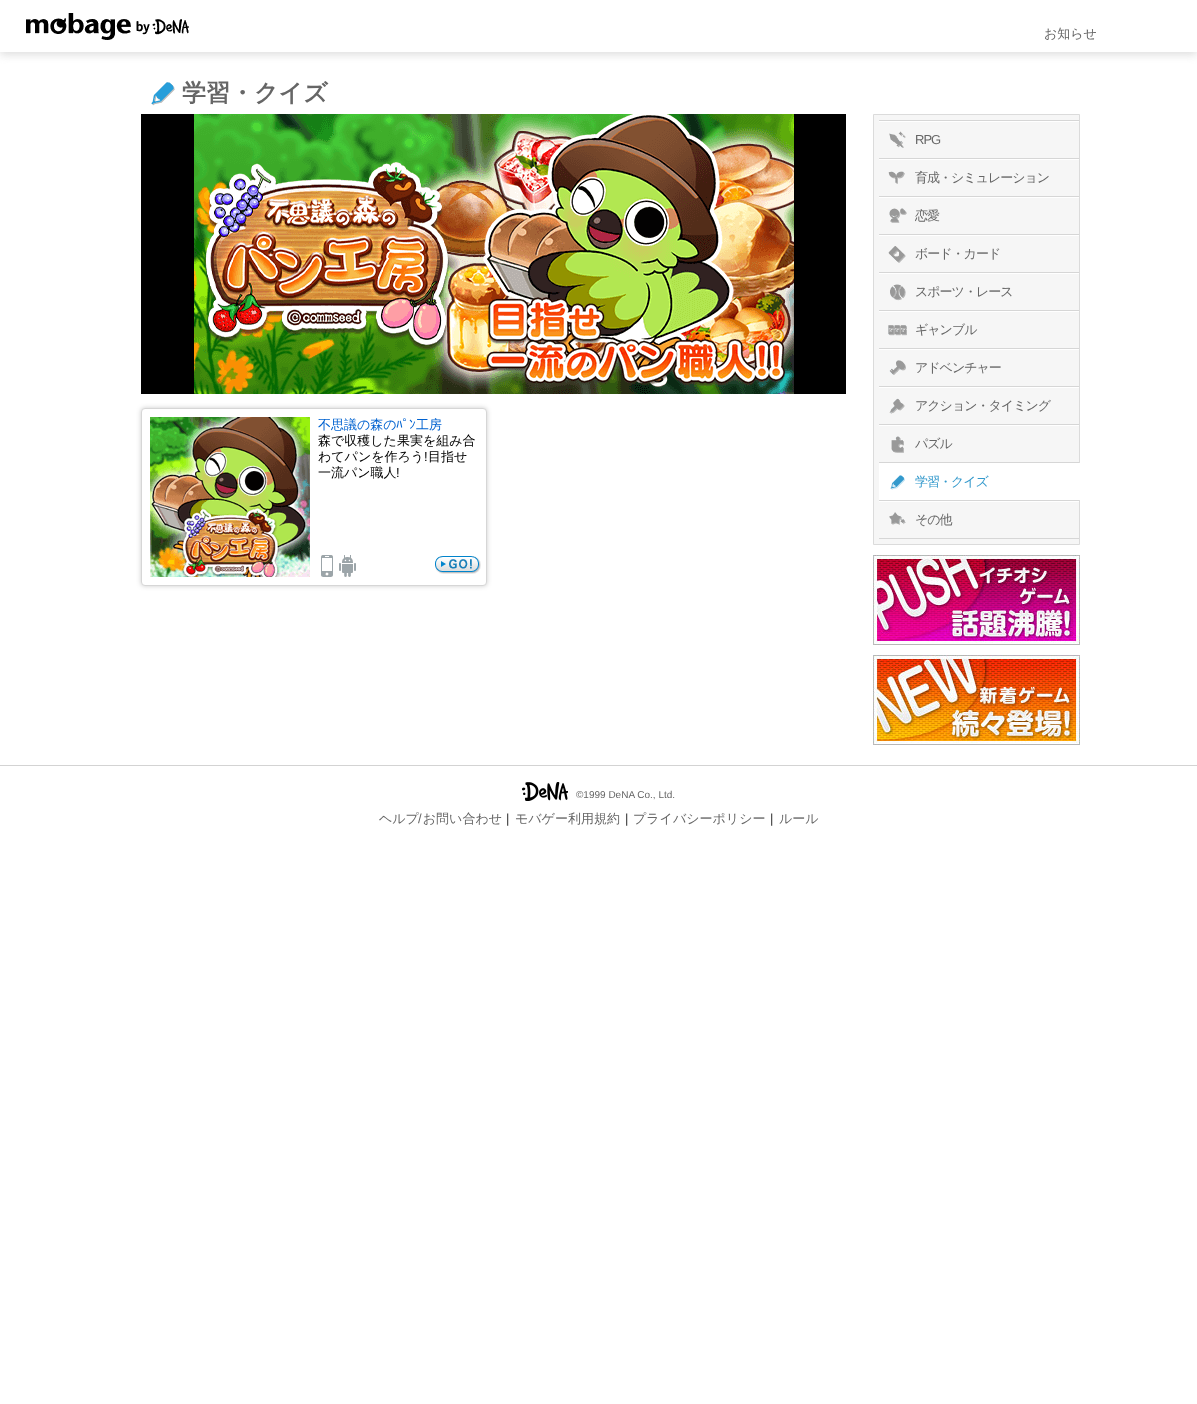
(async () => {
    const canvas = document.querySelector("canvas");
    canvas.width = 1197;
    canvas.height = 1404;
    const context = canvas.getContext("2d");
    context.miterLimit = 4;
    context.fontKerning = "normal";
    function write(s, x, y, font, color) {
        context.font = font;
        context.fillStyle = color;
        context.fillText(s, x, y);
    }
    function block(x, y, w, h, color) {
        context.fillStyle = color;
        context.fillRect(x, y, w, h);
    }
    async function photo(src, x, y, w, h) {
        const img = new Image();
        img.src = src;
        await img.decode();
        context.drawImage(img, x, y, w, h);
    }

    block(0, 0, 1197, 1404, "rgb(255, 255, 255)");
    context.save();
    context.beginPath();
    context.rect(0, 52, 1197, 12);
    context.clip();
    context.fillStyle = "rgb(223, 223, 223)";
    context.filter = "blur(4.5px)";
    context.beginPath();
    context.rect(0, 3, 1197, 52);
    context.fill();
    context.filter = "none";
    context.restore();
    await photo("media/1.png", 26, 13, 163, 27);
    write("お知らせ", 1044, 38, "500 13px WenQuanYi Zen Hei", "rgb(102, 102, 102)");
    await photo("media/2.png", 151, 82, 24, 24);
    write("学習・クイズ", 182, 101, "bold 24px WenQuanYi Zen Hei", "rgb(102, 102, 102)");
    block(141, 114, 705, 280, "rgb(0, 0, 0)");
    await photo("media/3.png", 194, 114, 600, 280);
    context.fillStyle = "rgba(0, 0, 0, 0.2)";
    context.filter = "blur(2.5px)";
    context.beginPath();
    context.roundRect(141, 408, 346, 178, 4);
    context.fill();
    context.filter = "none";
    context.fillStyle = "rgb(255, 255, 255)";
    context.beginPath();
    context.roundRect(141.5, 408.5, 345, 177, 3.5);
    context.fill();
    context.strokeStyle = "rgb(214, 214, 214)";
    context.stroke();
    await photo("media/4.png", 150, 417, 160, 160);
    write("不思議の森の", 318, 429, "500 13px WenQuanYi Zen Hei", "rgb(0, 98, 208)");
    write("ﾊﾟﾝ", 396, 429, "13px IPAPGothic", "rgb(0, 98, 208)");
    write("工房", 416, 429, "500 13px WenQuanYi Zen Hei", "rgb(0, 98, 208)");
    write("森で収穫した果実を組み合", 318, 445, "500 13px WenQuanYi Zen Hei", "rgb(0, 0, 0)");
    write("わてパンを作ろう 目指せ", 318, 461, "500 13px WenQuanYi Zen Hei", "rgb(0, 0, 0)");
    write("!", 424, 461, "13px Liberation Sans", "rgb(0, 0, 0)");
    write("一流パン職人", 318, 477, "500 13px WenQuanYi Zen Hei", "rgb(0, 0, 0)");
    write("!", 396, 477, "13px Liberation Sans", "rgb(0, 0, 0)");
    await photo("media/5.png", 321, 555, 12, 22);
    await photo("media/6.png", 339, 555, 17, 22);
    await photo("media/7.png", 435, 556, 46, 18);
    context.fillStyle = "rgb(246, 246, 246)";
    context.beginPath();
    context.rect(873.5, 114.5, 206, 430);
    context.fill();
    context.strokeStyle = "rgb(219, 219, 219)";
    context.stroke();
    block(879, 538, 200, 1, "rgb(214, 214, 214)");
    block(879, 120, 200, 1, "rgb(214, 214, 214)");
    block(879, 121, 200, 1, "rgb(255, 255, 255)");
    await photo("media/8.png", 889, 131, 17, 17);
    context.letterSpacing = "-1px";
    write("RPG", 915, 144, "13px Liberation Sans", "rgb(102, 102, 102)");
    block(879, 158, 200, 1, "rgb(214, 214, 214)");
    block(879, 159, 200, 1, "rgb(255, 255, 255)");
    await photo("media/9.png", 888, 171, 17, 13);
    write("育成・シミュレーション", 915, 182, "500 13px WenQuanYi Zen Hei", "rgb(102, 102, 102)");
    block(879, 196, 200, 1, "rgb(214, 214, 214)");
    block(879, 197, 200, 1, "rgb(255, 255, 255)");
    await photo("media/10.png", 889, 208, 18, 15);
    write("恋愛", 915, 220, "500 13px WenQuanYi Zen Hei", "rgb(102, 102, 102)");
    block(879, 234, 200, 1, "rgb(214, 214, 214)");
    block(879, 235, 200, 1, "rgb(255, 255, 255)");
    await photo("media/11.png", 888, 246, 18, 17);
    write("ボード・カード", 915, 258, "500 13px WenQuanYi Zen Hei", "rgb(102, 102, 102)");
    block(879, 272, 200, 1, "rgb(214, 214, 214)");
    block(879, 273, 200, 1, "rgb(255, 255, 255)");
    await photo("media/12.png", 890, 284, 16, 17);
    write("スポーツ・レース", 915, 296, "500 13px WenQuanYi Zen Hei", "rgb(102, 102, 102)");
    block(879, 310, 200, 1, "rgb(214, 214, 214)");
    block(879, 311, 200, 1, "rgb(255, 255, 255)");
    await photo("media/13.png", 888, 325, 19, 11);
    write("ギャンブル", 915, 334, "500 13px WenQuanYi Zen Hei", "rgb(102, 102, 102)");
    block(879, 348, 200, 1, "rgb(214, 214, 214)");
    block(879, 349, 200, 1, "rgb(255, 255, 255)");
    await photo("media/14.png", 889, 360, 17, 15);
    write("アドベンチャー", 915, 372, "500 13px WenQuanYi Zen Hei", "rgb(102, 102, 102)");
    block(879, 386, 200, 1, "rgb(214, 214, 214)");
    block(879, 387, 200, 1, "rgb(255, 255, 255)");
    await photo("media/15.png", 889, 398, 16, 16);
    write("アクション・タイミング", 915, 410, "500 13px WenQuanYi Zen Hei", "rgb(102, 102, 102)");
    block(879, 424, 200, 1, "rgb(214, 214, 214)");
    block(879, 425, 200, 1, "rgb(255, 255, 255)");
    await photo("media/16.png", 891, 436, 13, 17);
    write("パズル", 915, 448, "500 13px WenQuanYi Zen Hei", "rgb(102, 102, 102)");
    block(879, 462, 200, 1, "rgb(214, 214, 214)");
    block(879, 463, 201, 37, "rgb(255, 255, 255)");
    await photo("media/17.png", 890, 475, 15, 15);
    write("学習・クイズ", 915, 486, "500 13px WenQuanYi Zen Hei", "rgb(51, 153, 204)");
    block(879, 500, 200, 1, "rgb(214, 214, 214)");
    block(879, 501, 200, 1, "rgb(255, 255, 255)");
    await photo("media/18.png", 889, 512, 17, 13);
    write("その他", 915, 524, "500 13px WenQuanYi Zen Hei", "rgb(102, 102, 102)");
    await photo("media/19.png", 873, 555, 207, 90);
    await photo("media/20.png", 873, 655, 207, 90);
    block(0, 765, 1197, 1, "rgb(211, 211, 211)");
    await photo("media/21.png", 522, 782, 46, 19);
    context.letterSpacing = "0px";
    write("©1999 DeNA Co., Ltd.", 576, 798, "10px Liberation Sans", "rgb(102, 102, 102)");
    write("ヘルプ お問い合わせ", 379, 823, "500 13px WenQuanYi Zen Hei", "rgb(102, 102, 102)");
    write("モバゲー利用規約", 515, 823, "500 13px WenQuanYi Zen Hei", "rgb(102, 102, 102)");
    write("プライバシーポリシー", 633, 823, "500 13px WenQuanYi Zen Hei", "rgb(102, 102, 102)");
    write("/", 418, 823, "13px Liberation Sans", "rgb(102, 102, 102)");
    write("|", 506, 823, "13px Liberation Sans", "rgb(51, 51, 51)");
    write("|", 625, 823, "13px Liberation Sans", "rgb(51, 51, 51)");
    write("|", 770, 823, "13px Liberation Sans", "rgb(51, 51, 51)");
    write("ルール", 779, 823, "500 13px WenQuanYi Zen Hei", "rgb(102, 102, 102)");
})();
